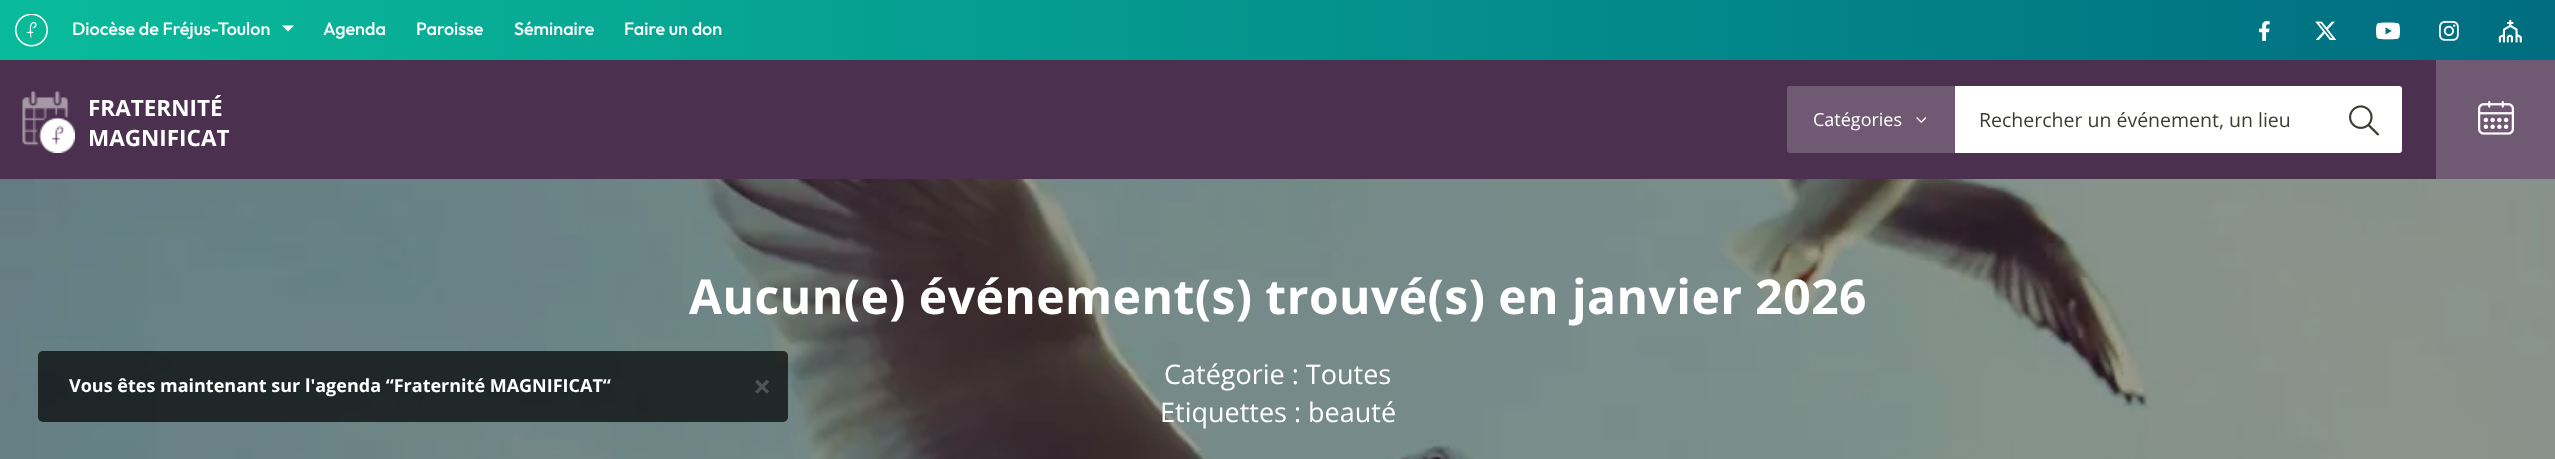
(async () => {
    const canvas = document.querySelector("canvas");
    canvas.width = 2555;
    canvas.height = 459;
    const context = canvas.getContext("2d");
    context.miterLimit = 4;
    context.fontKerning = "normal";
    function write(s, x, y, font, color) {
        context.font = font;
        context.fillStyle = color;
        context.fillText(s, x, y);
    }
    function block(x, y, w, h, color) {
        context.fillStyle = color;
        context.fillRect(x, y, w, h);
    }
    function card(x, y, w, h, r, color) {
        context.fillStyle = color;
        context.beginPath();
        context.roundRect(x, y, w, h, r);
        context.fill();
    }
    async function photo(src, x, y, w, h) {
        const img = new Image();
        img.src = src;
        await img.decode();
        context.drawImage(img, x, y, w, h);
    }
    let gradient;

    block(0, 0, 2555, 459, "rgb(255, 255, 255)");
    gradient = context.createLinearGradient(0, 30, 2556, 30);
    gradient.addColorStop(0, "rgb(9, 187, 154)");
    gradient.addColorStop(1, "rgb(0, 109, 129)");
    context.fillStyle = gradient;
    context.fillRect(0, 0, 2555, 60);
    await photo("media/1.png", 15, 14, 33, 33);
    write("Diocèse de Fréjus-Toulon", 72, 35, "100 18px Outfit", "rgb(255, 255, 255)");
    context.beginPath();
    context.moveTo(282, 25.5);
    context.lineTo(294, 25.5);
    context.lineTo(288, 31.5);
    context.closePath();
    context.fill();
    write("Agenda", 323, 35, "100 18px Outfit", "rgb(255, 255, 255)");
    write("Paroisse", 416, 35, "100 18px Outfit", "rgb(255, 255, 255)");
    write("Séminaire", 514, 35, "100 18px Outfit", "rgb(255, 255, 255)");
    write("Faire un don", 624, 35, "100 18px Outfit", "rgb(255, 255, 255)");
    await photo("media/2.png", 2259, 21, 11, 20);
    await photo("media/3.png", 2315, 21, 22, 19);
    await photo("media/4.png", 2376, 22, 24, 18);
    await photo("media/5.png", 2439, 21, 20, 20);
    await photo("media/6.png", 2498, 19, 24, 24);
    block(0, 60, 2436, 119, "rgb(76, 48, 79)");
    await photo("media/7.png", 22, 91, 53, 62);
    write("FRATERNITÉ", 88, 116, "bold 22.5px Open Sans", "rgb(255, 255, 255)");
    write("MAGNIFICAT", 88, 146, "bold 22.5px Open Sans", "rgb(255, 255, 255)");
    context.fillStyle = "rgb(112, 89, 114)";
    context.beginPath();
    context.roundRect(1787, 86, 168, 67, [3, 0, 0, 3]);
    context.fill();
    write("Catégories", 1813, 126, "18px Open Sans", "rgb(255, 255, 255)");
    await photo("media/8.png", 1916, 117, 11, 6);
    context.beginPath();
    context.roundRect(1955, 86, 447, 67, [0, 3, 3, 0]);
    context.fill();
    write("Rechercher un événement, un lieu", 1979, 127, "19.5px Open Sans", "rgb(63, 59, 52)");
    await photo("media/9.png", 2349, 105, 31, 31);
    block(2436, 60, 119, 119, "rgb(112, 89, 114)");
    await photo("media/10.png", 2478, 100, 36, 35);
    await photo("media/11.png", 0, 179, 2555, 280);
    context.letterSpacing = "0.45px";
    write("Aucun(e) événement(s) trouvé(s) en janvier 2026", 689, 314, "bold 48px Open Sans", "rgb(255, 255, 255)");
    context.letterSpacing = "0px";
    write("Catégorie : Toutes", 1164, 384, "27px Open Sans", "rgb(255, 255, 255)");
    write("Etiquettes : beauté", 1160, 422, "27px Open Sans", "rgb(255, 255, 255)");
    card(38, 351, 750, 71, 5, "rgba(0, 0, 0, 0.7)");
    write("Vous êtes maintenant sur l'agenda “Fraternité MAGNIFICAT“", 69, 392, "bold 18px Open Sans", "rgb(255, 255, 255)");
    write("×", 753, 398, "bold 32px Open Sans", "rgb(78, 83, 83)");
})();
